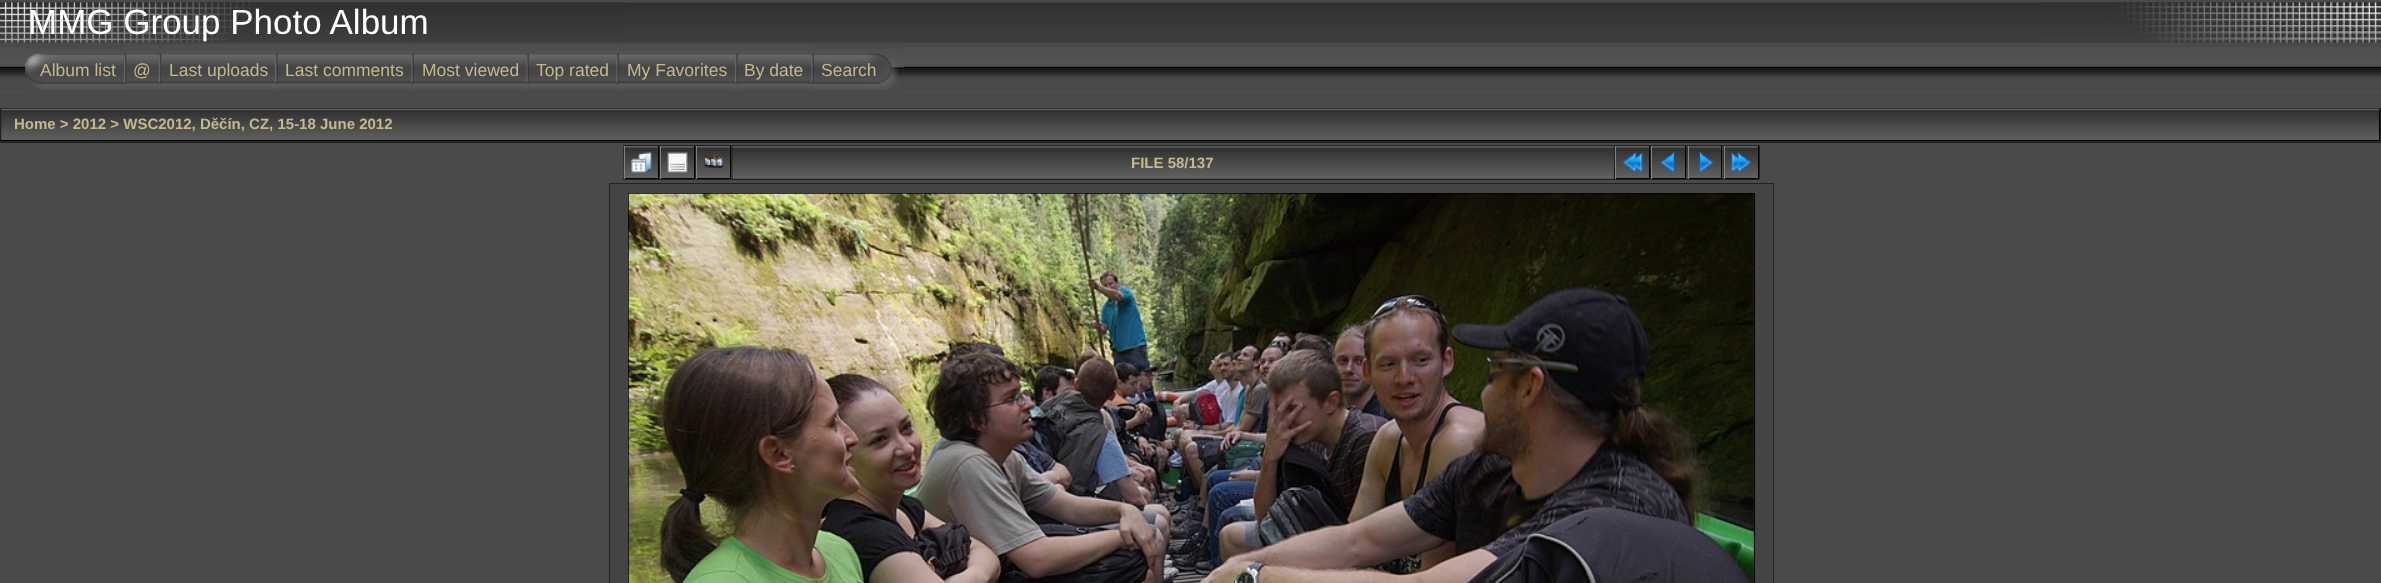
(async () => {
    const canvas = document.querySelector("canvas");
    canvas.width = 2381;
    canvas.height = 583;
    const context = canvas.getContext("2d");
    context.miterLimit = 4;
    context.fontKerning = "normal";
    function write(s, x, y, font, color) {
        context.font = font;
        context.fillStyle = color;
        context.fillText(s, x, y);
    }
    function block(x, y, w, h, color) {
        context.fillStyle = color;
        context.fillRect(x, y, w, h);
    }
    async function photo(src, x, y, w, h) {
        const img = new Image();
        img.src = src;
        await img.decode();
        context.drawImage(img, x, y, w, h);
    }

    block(0, 0, 2381, 583, "rgb(74, 74, 74)");
    await photo("media/1.png", 0, 2, 2381, 41);
    await photo("media/2.png", 0, 2, 626, 41);
    await photo("media/3.png", 2040, 2, 341, 41);
    write("MMG Group Photo Album", 28, 34, "35px Liberation Sans", "rgb(255, 255, 255)");
    await photo("media/4.png", 0, 47, 2381, 45);
    block(25, 47, 99, 45, "rgb(74, 74, 74)");
    await photo("media/5.png", 25, 49, 99, 41);
    write("Album list", 40, 76, "17.5px Liberation Sans", "rgb(198, 183, 142)");
    block(126, 47, 33, 45, "rgb(74, 74, 74)");
    await photo("media/7.png", 126, 45, 33, 45);
    await photo("media/6.png", 123, 53, 4, 37);
    write("@", 133, 76, "17.5px Liberation Sans", "rgb(198, 183, 142)");
    block(161, 47, 114, 45, "rgb(74, 74, 74)");
    await photo("media/9.png", 161, 45, 114, 45);
    await photo("media/8.png", 158, 53, 4, 37);
    write("Last uploads", 169, 76, "17.5px Liberation Sans", "rgb(198, 183, 142)");
    await photo("media/11.png", 277, 45, 135, 45);
    await photo("media/10.png", 275, 53, 3, 37);
    block(278, 91, 133, 1, "rgb(74, 74, 74)");
    write("Last comments", 285, 76, "17.5px Liberation Sans", "rgb(198, 183, 142)");
    await photo("media/13.png", 413, 45, 114, 45);
    await photo("media/12.png", 411, 53, 3, 37);
    block(414, 91, 112, 1, "rgb(74, 74, 74)");
    write("Most viewed", 422, 76, "17.5px Liberation Sans", "rgb(198, 183, 142)");
    await photo("media/14.png", 528, 45, 89, 45);
    await photo("media/12.png", 526, 53, 3, 37);
    block(529, 91, 87, 1, "rgb(74, 74, 74)");
    write("Top rated", 536, 76, "17.5px Liberation Sans", "rgb(198, 183, 142)");
    await photo("media/15.png", 618, 45, 117, 45);
    await photo("media/12.png", 616, 53, 3, 37);
    block(619, 91, 116, 1, "rgb(74, 74, 74)");
    write("My Favorites", 627, 76, "17.5px Liberation Sans", "rgb(198, 183, 142)");
    await photo("media/16.png", 737, 45, 75, 45);
    await photo("media/10.png", 735, 53, 3, 37);
    block(738, 91, 73, 1, "rgb(74, 74, 74)");
    write("By date", 744, 76, "17.5px Liberation Sans", "rgb(198, 183, 142)");
    block(814, 47, 90, 45, "rgb(74, 74, 74)");
    await photo("media/18.png", 813, 49, 91, 41);
    await photo("media/17.png", 811, 53, 3, 37);
    write("Search", 821, 76, "17.5px Liberation Sans", "rgb(198, 183, 142)");
    block(0, 108, 2381, 35, "rgb(34, 34, 34)");
    await photo("media/19.png", 1, 108, 2379, 34);
    block(2379, 109, 1, 32, "rgb(0, 0, 0)");
    block(1, 140, 2379, 1, "rgb(0, 0, 0)");
    write("Home > 2012 > WSC2012, Děčín, CZ, 15-18 June 2012", 14, 129, "bold 15px Liberation Sans", "rgb(198, 183, 142)");
    block(623, 145, 1137, 35, "rgb(34, 34, 34)");
    await photo("media/20.png", 623, 146, 35, 33);
    await photo("media/21.png", 623, 146, 35, 33);
    block(658, 146, 1, 33, "rgb(0, 0, 0)");
    block(624, 178, 35, 1, "rgb(0, 0, 0)");
    block(624, 146, 1, 33, "rgb(131, 131, 131)");
    await photo("media/22.png", 631, 152, 21, 21);
    await photo("media/23.png", 661, 146, 33, 1);
    await photo("media/24.png", 661, 146, 33, 32);
    block(694, 146, 1, 33, "rgb(0, 0, 0)");
    block(660, 178, 35, 1, "rgb(0, 0, 0)");
    block(660, 146, 1, 33, "rgb(131, 131, 131)");
    await photo("media/25.png", 667, 152, 21, 21);
    await photo("media/26.png", 697, 146, 35, 33);
    await photo("media/27.png", 697, 146, 35, 33);
    block(730, 146, 1, 33, "rgb(0, 0, 0)");
    block(696, 178, 35, 1, "rgb(0, 0, 0)");
    block(696, 146, 1, 33, "rgb(131, 131, 131)");
    await photo("media/28.png", 704, 153, 20, 16);
    block(733, 146, 881, 33, "rgb(63, 63, 63)");
    await photo("media/29.png", 732, 146, 882, 33);
    write("FILE 58/137", 1131, 168, "bold 15px Liberation Sans", "rgb(198, 183, 142)");
    await photo("media/23.png", 1616, 146, 33, 1);
    await photo("media/24.png", 1616, 146, 33, 32);
    block(1649, 146, 1, 33, "rgb(0, 0, 0)");
    block(1615, 178, 35, 1, "rgb(0, 0, 0)");
    block(1615, 146, 1, 33, "rgb(131, 131, 131)");
    await photo("media/30.png", 1622, 152, 21, 21);
    await photo("media/26.png", 1652, 146, 35, 33);
    await photo("media/27.png", 1652, 146, 35, 33);
    block(1685, 146, 1, 33, "rgb(0, 0, 0)");
    block(1651, 178, 35, 1, "rgb(0, 0, 0)");
    block(1651, 146, 1, 33, "rgb(131, 131, 131)");
    await photo("media/31.png", 1660, 152, 16, 21);
    await photo("media/32.png", 1687, 146, 1, 33);
    block(1689, 146, 34, 32, "rgb(63, 63, 63)");
    await photo("media/33.png", 1687, 146, 36, 33);
    block(1721, 146, 1, 33, "rgb(0, 0, 0)");
    block(1688, 178, 35, 1, "rgb(0, 0, 0)");
    block(1688, 146, 1, 33, "rgb(131, 131, 131)");
    await photo("media/34.png", 1698, 152, 16, 21);
    await photo("media/20.png", 1723, 146, 35, 33);
    await photo("media/21.png", 1723, 146, 35, 33);
    block(1758, 146, 1, 33, "rgb(0, 0, 0)");
    block(1724, 178, 35, 1, "rgb(0, 0, 0)");
    block(1724, 146, 1, 33, "rgb(131, 131, 131)");
    await photo("media/35.png", 1731, 152, 21, 21);
    block(609, 183, 1165, 400, "rgb(34, 34, 34)");
    block(610, 184, 1163, 399, "rgb(69, 68, 68)");
    context.strokeStyle = "rgb(0, 0, 0)";
    context.strokeRect(628.5, 193.5, 1126, 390);
    await photo("media/36.png", 628, 193, 1126, 390);
})();
